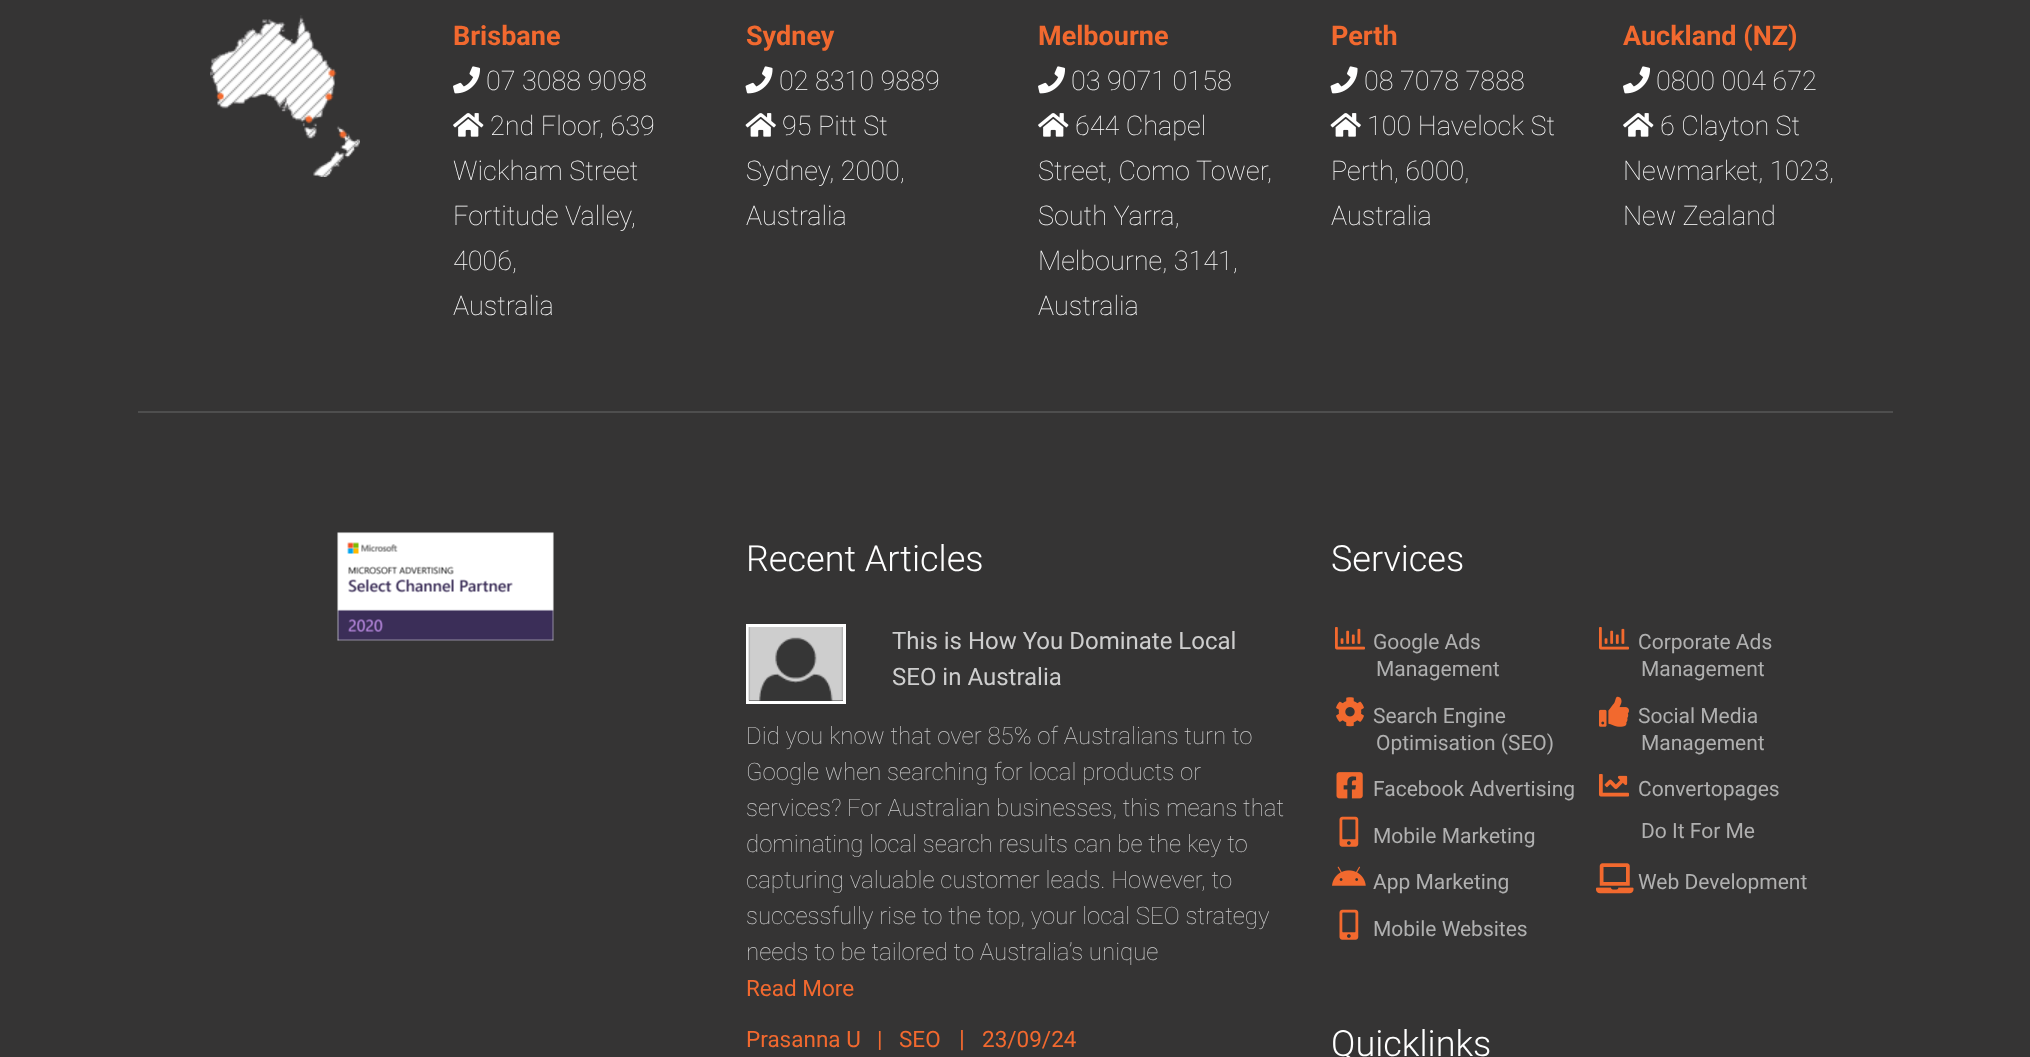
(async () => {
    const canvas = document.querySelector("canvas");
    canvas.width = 2030;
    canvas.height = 1057;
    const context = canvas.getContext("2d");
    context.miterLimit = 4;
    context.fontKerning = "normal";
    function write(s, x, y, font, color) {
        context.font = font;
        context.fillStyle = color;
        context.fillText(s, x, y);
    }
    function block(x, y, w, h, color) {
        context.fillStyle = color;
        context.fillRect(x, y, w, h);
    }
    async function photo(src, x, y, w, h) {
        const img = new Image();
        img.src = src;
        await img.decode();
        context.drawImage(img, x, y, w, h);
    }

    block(0, 0, 2030, 1057, "rgb(53, 52, 52)");
    block(138, 411, 1755, 2, "rgb(78, 78, 78)");
    await photo("media/1.png", 210, 15, 150, 162);
    write("Brisbane", 453, 45, "bold 27px Roboto", "rgb(242, 105, 47)");
    await photo("media/2.png", 453, 66, 28, 28);
    write("07 3088 9098", 486, 90, "100 27px Roboto", "rgb(255, 255, 255)");
    await photo("media/3.png", 453, 113, 31, 24);
    write("2nd Floor, 639", 490, 135, "100 27px Roboto", "rgb(255, 255, 255)");
    write("Wickham Street", 453, 180, "100 27px Roboto", "rgb(255, 255, 255)");
    write("Fortitude Valley,", 453, 225, "100 27px Roboto", "rgb(255, 255, 255)");
    write("4006,", 453, 270, "100 27px Roboto", "rgb(255, 255, 255)");
    write("Australia", 453, 315, "100 27px Roboto", "rgb(255, 255, 255)");
    write("Sydney", 746, 45, "bold 27px Roboto", "rgb(242, 105, 47)");
    await photo("media/4.png", 745, 66, 28, 28);
    write("02 8310 9889", 779, 90, "100 27px Roboto", "rgb(255, 255, 255)");
    await photo("media/5.png", 745, 113, 31, 24);
    write("95 Pitt St", 782, 135, "100 27px Roboto", "rgb(255, 255, 255)");
    write("Sydney, 2000,", 746, 180, "100 27px Roboto", "rgb(255, 255, 255)");
    write("Australia", 746, 225, "100 27px Roboto", "rgb(255, 255, 255)");
    write("Melbourne", 1038, 45, "bold 27px Roboto", "rgb(242, 105, 47)");
    await photo("media/2.png", 1038, 66, 28, 28);
    write("03 9071 0158", 1071, 90, "100 27px Roboto", "rgb(255, 255, 255)");
    await photo("media/3.png", 1038, 113, 31, 24);
    write("644 Chapel", 1075, 135, "100 27px Roboto", "rgb(255, 255, 255)");
    write("Street, Como Tower,", 1038, 180, "100 27px Roboto", "rgb(255, 255, 255)");
    write("South Yarra,", 1038, 225, "100 27px Roboto", "rgb(255, 255, 255)");
    write("Melbourne, 3141,", 1038, 270, "100 27px Roboto", "rgb(255, 255, 255)");
    write("Australia", 1038, 315, "100 27px Roboto", "rgb(255, 255, 255)");
    write("Perth", 1331, 45, "bold 27px Roboto", "rgb(242, 105, 47)");
    await photo("media/4.png", 1330, 66, 28, 28);
    write("08 7078 7888", 1364, 90, "100 27px Roboto", "rgb(255, 255, 255)");
    await photo("media/5.png", 1330, 113, 31, 24);
    write("100 Havelock St", 1367, 135, "100 27px Roboto", "rgb(255, 255, 255)");
    write("Perth, 6000,", 1331, 180, "100 27px Roboto", "rgb(255, 255, 255)");
    write("Australia", 1331, 225, "100 27px Roboto", "rgb(255, 255, 255)");
    write("Auckland (NZ)", 1623, 45, "bold 27px Roboto", "rgb(242, 105, 47)");
    await photo("media/2.png", 1623, 66, 28, 28);
    write("0800 004 672", 1656, 90, "100 27px Roboto", "rgb(255, 255, 255)");
    await photo("media/3.png", 1623, 113, 31, 24);
    write("6 Clayton St", 1660, 135, "100 27px Roboto", "rgb(255, 255, 255)");
    write("Newmarket, 1023,", 1623, 180, "100 27px Roboto", "rgb(255, 255, 255)");
    write("New Zealand", 1623, 225, "100 27px Roboto", "rgb(255, 255, 255)");
    await photo("media/6.png", 337, 532, 217, 109);
    write("Recent Articles", 746, 571, "300 36px Roboto", "rgb(255, 255, 255)");
    context.strokeStyle = "rgb(255, 255, 255)";
    context.lineWidth = 3;
    context.strokeRect(747.5, 625.5, 97, 77);
    await photo("media/7.png", 748, 627, 95, 74);
    write("This is How You Dominate Local", 892, 649, "24px Roboto", "rgb(206, 206, 206)");
    write("SEO in Australia", 892, 685, "24px Roboto", "rgb(206, 206, 206)");
    write("Did you know that over 85% of Australians turn to", 746, 744, "100 24px Roboto", "rgb(206, 206, 206)");
    write("Google when searching for local products or", 746, 780, "100 24px Roboto", "rgb(206, 206, 206)");
    write("services? For Australian businesses, this means that", 746, 816, "100 24px Roboto", "rgb(206, 206, 206)");
    write("dominating local search results can be the key to", 746, 852, "100 24px Roboto", "rgb(206, 206, 206)");
    write("capturing valuable customer leads. However, to", 746, 888, "100 24px Roboto", "rgb(206, 206, 206)");
    write("successfully rise to the top, your local SEO strategy", 746, 924, "100 24px Roboto", "rgb(206, 206, 206)");
    write("needs to be tailored to Australia’s unique", 746, 960, "100 24px Roboto", "rgb(206, 206, 206)");
    write("Read More", 746, 996, "22.5px Roboto", "rgb(242, 105, 47)");
    write("Prasanna U", 746, 1047, "22.5px Roboto", "rgb(242, 105, 47)");
    write("|", 877, 1047, "22.5px Roboto", "rgb(242, 105, 47)");
    write("SEO", 899, 1047, "22.5px Roboto", "rgb(242, 105, 47)");
    write("|", 959, 1047, "24px Roboto", "rgb(242, 105, 47)");
    write("23/09/24", 982, 1047, "22.5px Roboto", "rgb(242, 105, 47)");
    write("Services", 1331, 571, "300 36px Roboto", "rgb(255, 255, 255)");
    await photo("media/8.png", 1335, 627, 30, 23);
    write("Google Ads", 1373, 649, "21px Roboto", "rgb(176, 176, 176)");
    write("Management", 1376, 676, "21px Roboto", "rgb(176, 176, 176)");
    await photo("media/8.png", 1599, 627, 30, 23);
    write("Corporate Ads", 1638, 649, "21px Roboto", "rgb(176, 176, 176)");
    write("Management", 1641, 676, "21px Roboto", "rgb(176, 176, 176)");
    await photo("media/9.png", 1336, 697, 28, 30);
    write("Search Engine", 1373, 723, "21px Roboto", "rgb(176, 176, 176)");
    write("Optimisation (SEO)", 1376, 750, "21px Roboto", "rgb(176, 176, 176)");
    await photo("media/10.png", 1599, 696, 30, 31);
    write("Social Media", 1638, 723, "21px Roboto", "rgb(176, 176, 176)");
    write("Management", 1641, 750, "21px Roboto", "rgb(176, 176, 176)");
    await photo("media/11.png", 1336, 772, 27, 27);
    write("Facebook Advertising", 1373, 796, "21px Roboto", "rgb(176, 176, 176)");
    await photo("media/12.png", 1599, 774, 30, 23);
    write("Convertopages", 1638, 796, "21px Roboto", "rgb(176, 176, 176)");
    await photo("media/13.png", 1339, 816, 20, 31);
    write("Mobile Marketing", 1373, 843, "21px Roboto", "rgb(176, 176, 176)");
    write("Do It For Me", 1641, 838, "21px Roboto", "rgb(176, 176, 176)");
    await photo("media/14.png", 1332, 866, 34, 20);
    write("App Marketing", 1373, 889, "21px Roboto", "rgb(176, 176, 176)");
    await photo("media/15.png", 1596, 863, 38, 31);
    write("Web Development", 1638, 889, "21px Roboto", "rgb(176, 176, 176)");
    await photo("media/13.png", 1339, 909, 20, 31);
    write("Mobile Websites", 1373, 936, "21px Roboto", "rgb(176, 176, 176)");
    write("Quicklinks", 1331, 1056, "300 36px Roboto", "rgb(255, 255, 255)");
})();
